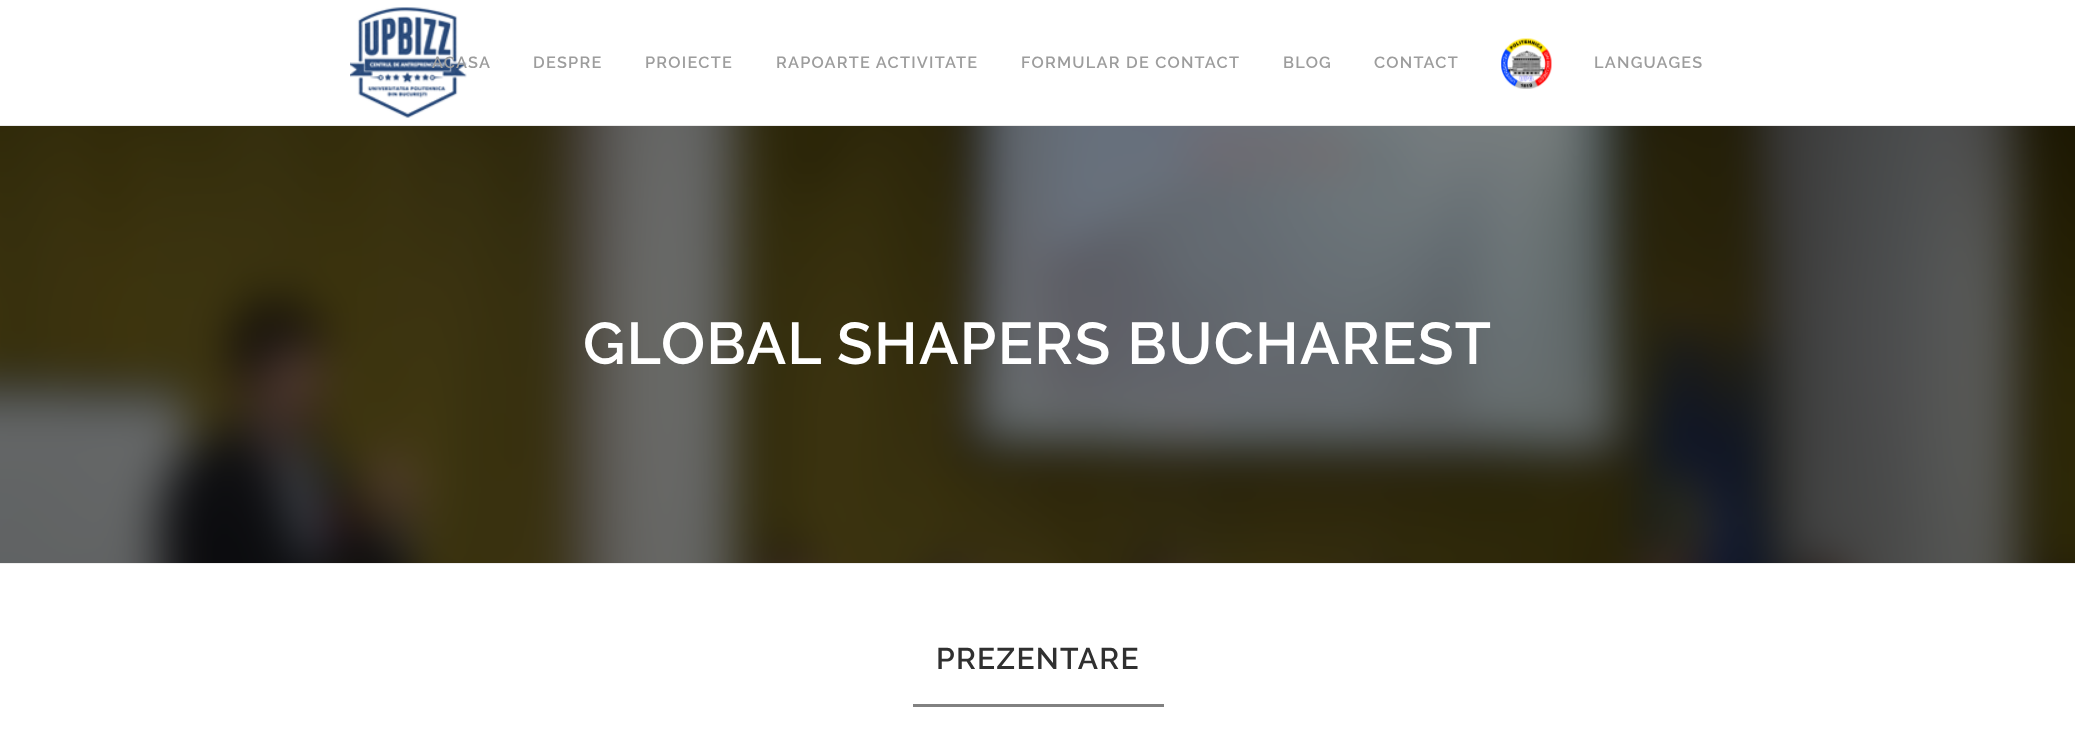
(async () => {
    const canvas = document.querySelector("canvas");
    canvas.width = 2075;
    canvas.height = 744;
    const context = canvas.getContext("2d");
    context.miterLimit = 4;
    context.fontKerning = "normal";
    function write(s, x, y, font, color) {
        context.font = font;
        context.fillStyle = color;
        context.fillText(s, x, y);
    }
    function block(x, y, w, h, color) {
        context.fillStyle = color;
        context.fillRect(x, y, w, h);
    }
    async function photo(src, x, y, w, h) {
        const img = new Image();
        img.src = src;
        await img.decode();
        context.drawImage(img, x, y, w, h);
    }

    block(0, 0, 2075, 744, "rgb(255, 255, 255)");
    block(0, 125, 2075, 1, "rgb(234, 234, 234)");
    await photo("media/1.png", 350, 7, 117, 111);
    context.letterSpacing = "1.25px";
    write("ACASA", 432, 68, "600 16.25px Raleway", "rgb(157, 157, 157)");
    write("DESPRE", 533, 68, "600 16.25px Raleway", "rgb(157, 157, 157)");
    write("PROIECTE", 645, 68, "600 16.25px Raleway", "rgb(157, 157, 157)");
    write("RAPOARTE ACTIVITATE", 776, 68, "600 16.25px Raleway", "rgb(157, 157, 157)");
    write("FORMULAR DE CONTACT", 1021, 68, "600 16.25px Raleway", "rgb(157, 157, 157)");
    write("BLOG", 1283, 68, "600 16.25px Raleway", "rgb(157, 157, 157)");
    write("CONTACT", 1374, 68, "600 16.25px Raleway", "rgb(157, 157, 157)");
    await photo("media/2.png", 1501, 38, 51, 51);
    write("LANGUAGES", 1594, 68, "600 16.25px Raleway", "rgb(157, 157, 157)");
    await photo("media/3.png", 0, 126, 2075, 437);
    block(0, 563, 2075, 1, "rgb(238, 238, 238)");
    write("GLOBAL SHAPERS BUCHAREST", 583, 364, "600 58.75px Raleway", "rgb(255, 255, 255)");
    write("PREZENTARE", 936, 669, "600 30px Raleway", "rgb(48, 48, 48)");
    block(913, 704, 251, 3, "rgb(129, 129, 129)");
})();
